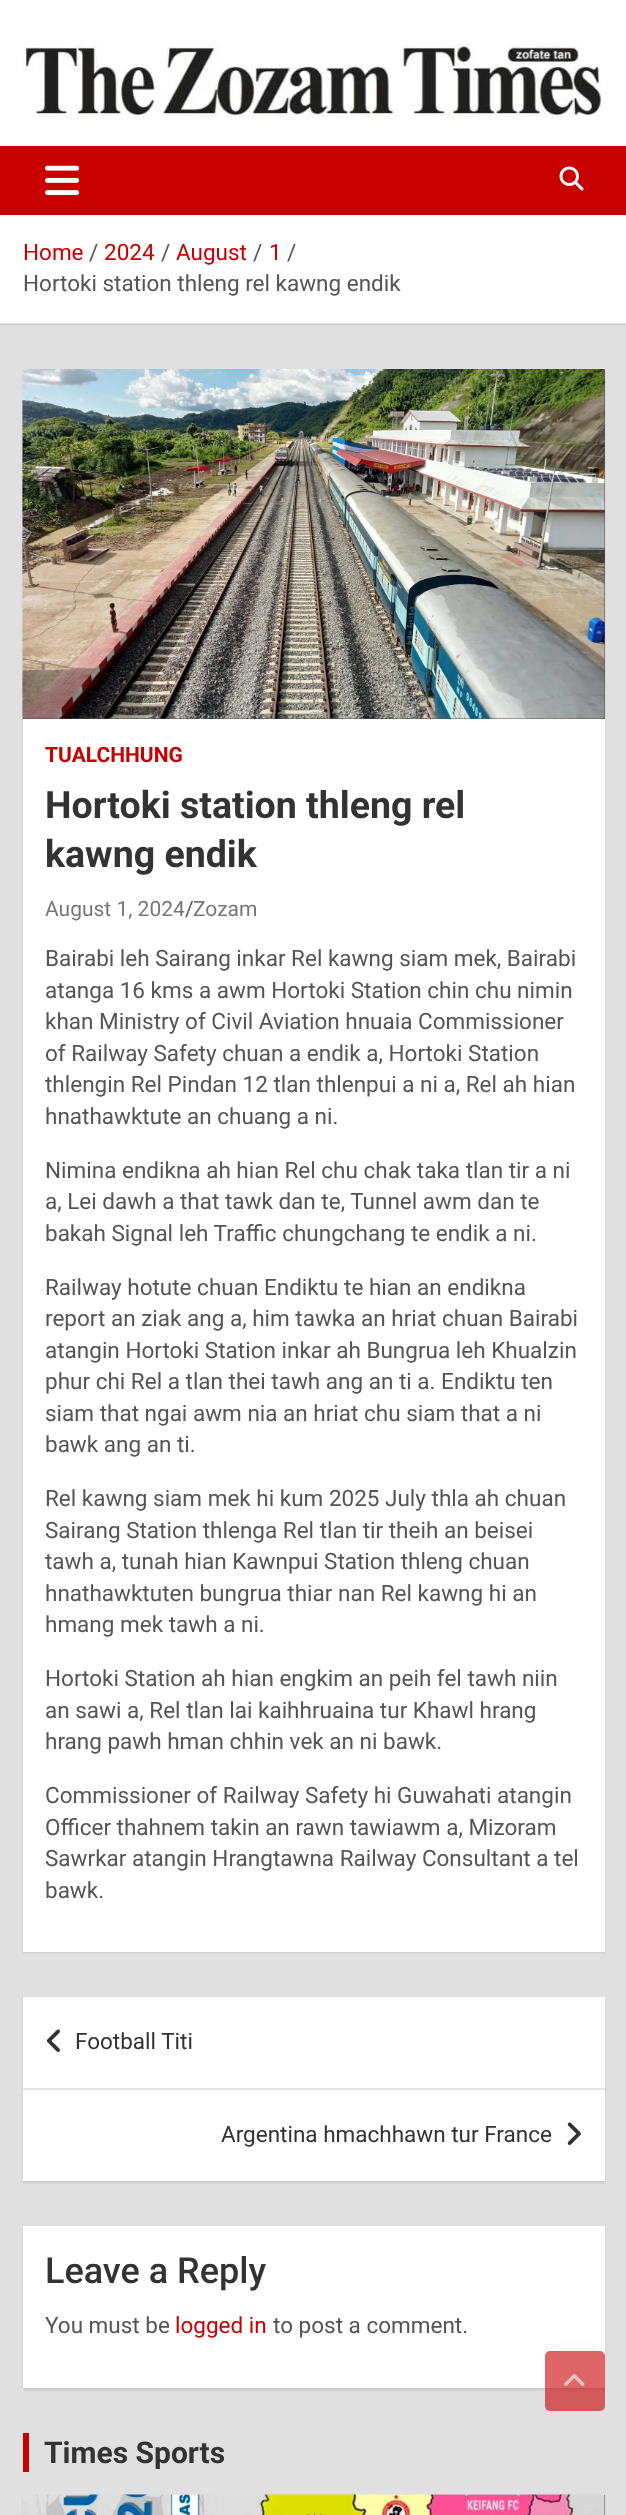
(async () => {
    const canvas = document.querySelector("canvas");
    canvas.width = 626;
    canvas.height = 2515;
    const context = canvas.getContext("2d");
    context.miterLimit = 4;
    context.fontKerning = "normal";
    function write(s, x, y, font, color) {
        context.font = font;
        context.fillStyle = color;
        context.fillText(s, x, y);
    }
    function block(x, y, w, h, color) {
        context.fillStyle = color;
        context.fillRect(x, y, w, h);
    }
    function card(x, y, w, h, r, color) {
        context.fillStyle = color;
        context.beginPath();
        context.roundRect(x, y, w, h, r);
        context.fill();
    }
    async function photo(src, x, y, w, h) {
        const img = new Image();
        img.src = src;
        await img.decode();
        context.drawImage(img, x, y, w, h);
    }

    block(0, 0, 626, 2515, "rgb(224, 224, 224)");
    block(0, 324, 626, 1, "rgb(202, 202, 202)");
    block(0, 0, 626, 146, "rgb(255, 255, 255)");
    await photo("media/1.png", 22, 44, 582, 77);
    block(0, 146, 626, 69, "rgb(200, 0, 0)");
    await photo("media/2.png", 45, 165, 35, 30);
    await photo("media/3.png", 559, 166, 25, 25);
    block(0, 215, 626, 108, "rgb(255, 255, 255)");
    block(0, 323, 626, 1, "rgb(230, 230, 230)");
    write("Home", 23, 260, "22.5px Roboto", "rgb(200, 0, 0)");
    write("/", 89, 260, "22.5px Roboto", "rgb(85, 85, 85)");
    write("2024", 104, 260, "22.5px Roboto", "rgb(200, 0, 0)");
    write("/", 161, 260, "22.5px Roboto", "rgb(85, 85, 85)");
    write("August", 176, 260, "22.5px Roboto", "rgb(200, 0, 0)");
    write("/", 253, 260, "22.5px Roboto", "rgb(85, 85, 85)");
    write("1", 269, 260, "22.5px Roboto", "rgb(200, 0, 0)");
    write("/", 287, 260, "22.5px Roboto", "rgb(85, 85, 85)");
    write("Hortoki station thleng rel kawng endik", 23, 291, "22.5px Roboto", "rgb(85, 85, 85)");
    context.fillStyle = "rgba(0, 0, 0, 0.1)";
    context.filter = "blur(1px)";
    context.beginPath();
    context.rect(23, 371, 582, 1582);
    context.fill();
    context.filter = "none";
    block(23, 719, 582, 1233, "rgb(255, 255, 255)");
    block(23, 369, 582, 350, "rgb(85, 85, 85)");
    await photo("media/4.png", 22, 369, 583, 350);
    write("TUALCHHUNG", 45, 762, "bold 21px Roboto", "rgb(200, 0, 0)");
    write("Hortoki station thleng rel", 45, 818, "bold 37.5px Roboto", "rgb(51, 51, 51)");
    write("kawng endik", 45, 867, "bold 37.5px Roboto", "rgb(51, 51, 51)");
    write("August 1, 2024", 45, 916, "21px Roboto", "rgb(119, 119, 119)");
    write("/", 185, 916, "21px Roboto", "rgb(85, 85, 85)");
    write("Zozam", 193, 916, "21px Roboto", "rgb(119, 119, 119)");
    write("Bairabi leh Sairang inkar Rel kawng siam mek, Bairabi", 45, 966, "22.5px Roboto", "rgb(85, 85, 85)");
    write("atanga 16 kms a awm Hortoki Station chin chu nimin", 45, 998, "22.5px Roboto", "rgb(85, 85, 85)");
    write("khan Ministry of Civil Aviation hnuaia Commissioner", 45, 1029, "22.5px Roboto", "rgb(85, 85, 85)");
    write("of Railway Safety chuan a endik a, Hortoki Station", 45, 1061, "22.5px Roboto", "rgb(85, 85, 85)");
    write("thlengin Rel Pindan 12 tlan thlenpui a ni a, Rel ah hian", 45, 1092, "22.5px Roboto", "rgb(85, 85, 85)");
    write("hnathawktute an chuang a ni.", 45, 1124, "22.5px Roboto", "rgb(85, 85, 85)");
    write("Nimina endikna ah hian Rel chu chak taka tlan tir a ni", 45, 1178, "22.5px Roboto", "rgb(85, 85, 85)");
    write("a, Lei dawh a that tawk dan te, Tunnel awm dan te", 45, 1209, "22.5px Roboto", "rgb(85, 85, 85)");
    write("bakah Signal leh Traffic chungchang te endik a ni.", 45, 1241, "22.5px Roboto", "rgb(85, 85, 85)");
    write("Railway hotute chuan Endiktu te hian an endikna", 45, 1295, "22.5px Roboto", "rgb(85, 85, 85)");
    write("report an ziak ang a, him tawka an hriat chuan Bairabi", 45, 1326, "22.5px Roboto", "rgb(85, 85, 85)");
    write("atangin Hortoki Station inkar ah Bungrua leh Khualzin", 45, 1358, "22.5px Roboto", "rgb(85, 85, 85)");
    write("phur chi Rel a tlan thei tawh ang an ti a. Endiktu ten", 45, 1389, "22.5px Roboto", "rgb(85, 85, 85)");
    write("siam that ngai awm nia an hriat chu siam that a ni", 45, 1421, "22.5px Roboto", "rgb(85, 85, 85)");
    write("bawk ang an ti.", 45, 1452, "22.5px Roboto", "rgb(85, 85, 85)");
    write("Rel kawng siam mek hi kum 2025 July thla ah chuan", 45, 1506, "22.5px Roboto", "rgb(85, 85, 85)");
    write("Sairang Station thlenga Rel tlan tir theih an beisei", 45, 1538, "22.5px Roboto", "rgb(85, 85, 85)");
    write("tawh a, tunah hian Kawnpui Station thleng chuan", 45, 1569, "22.5px Roboto", "rgb(85, 85, 85)");
    write("hnathawktuten bungrua thiar nan Rel kawng hi an", 45, 1601, "22.5px Roboto", "rgb(85, 85, 85)");
    write("hmang mek tawh a ni.", 45, 1632, "22.5px Roboto", "rgb(85, 85, 85)");
    write("Hortoki Station ah hian engkim an peih fel tawh niin", 45, 1686, "22.5px Roboto", "rgb(85, 85, 85)");
    write("an sawi a, Rel tlan lai kaihhruaina tur Khawl hrang", 45, 1718, "22.5px Roboto", "rgb(85, 85, 85)");
    write("hrang pawh hman chhin vek an ni bawk.", 45, 1749, "22.5px Roboto", "rgb(85, 85, 85)");
    write("Commissioner of Railway Safety hi Guwahati atangin", 45, 1803, "22.5px Roboto", "rgb(85, 85, 85)");
    write("Officer thahnem takin an rawn tawiawm a, Mizoram", 45, 1835, "22.5px Roboto", "rgb(85, 85, 85)");
    write("Sawrkar atangin Hrangtawna Railway Consultant a tel", 45, 1866, "22.5px Roboto", "rgb(85, 85, 85)");
    write("bawk.", 45, 1898, "22.5px Roboto", "rgb(85, 85, 85)");
    context.fillStyle = "rgba(0, 0, 0, 0.1)";
    context.filter = "blur(1px)";
    context.beginPath();
    context.rect(23, 1998, 582, 185);
    context.fill();
    context.filter = "none";
    block(23, 1997, 582, 184, "rgb(255, 255, 255)");
    block(23, 2088, 582, 2, "rgb(230, 230, 230)");
    await photo("media/5.png", 46, 2029, 14, 23);
    write("Football Titi", 75, 2049, "22.5px Roboto", "rgb(51, 51, 51)");
    write("Argentina hmachhawn tur France", 221, 2142, "22.5px Roboto", "rgb(51, 51, 51)");
    await photo("media/6.png", 567, 2122, 14, 23);
    context.fillStyle = "rgba(0, 0, 0, 0.1)";
    context.filter = "blur(1px)";
    context.beginPath();
    context.rect(23, 2228, 582, 162);
    context.fill();
    context.filter = "none";
    block(23, 2226, 582, 162, "rgb(255, 255, 255)");
    write("Leave a Reply", 45, 2283, "500 36px Roboto", "rgb(51, 51, 51)");
    write("You must be", 45, 2333, "22.5px Roboto", "rgb(85, 85, 85)");
    write("logged in", 175, 2333, "22.5px Roboto", "rgb(200, 0, 0)");
    write("to post a comment.", 273, 2333, "22.5px Roboto", "rgb(85, 85, 85)");
    card(545, 2351, 60, 60, 5, "rgba(200, 0, 0, 0.6)");
    await photo("media/7.png", 564, 2374, 21, 12);
    block(23, 2433, 6, 39, "rgb(200, 0, 0)");
    write("Times Sports", 44, 2463, "bold 30px Roboto", "rgb(51, 51, 51)");
    context.fillStyle = "rgba(0, 0, 0, 0.1)";
    context.filter = "blur(1px)";
    context.beginPath();
    context.rect(23, 2496, 582, 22);
    context.fill();
    context.filter = "none";
    block(604, 2495, 1, 20, "rgb(85, 85, 85)");
    await photo("media/8.png", 23, 2494, 582, 21);
})();
